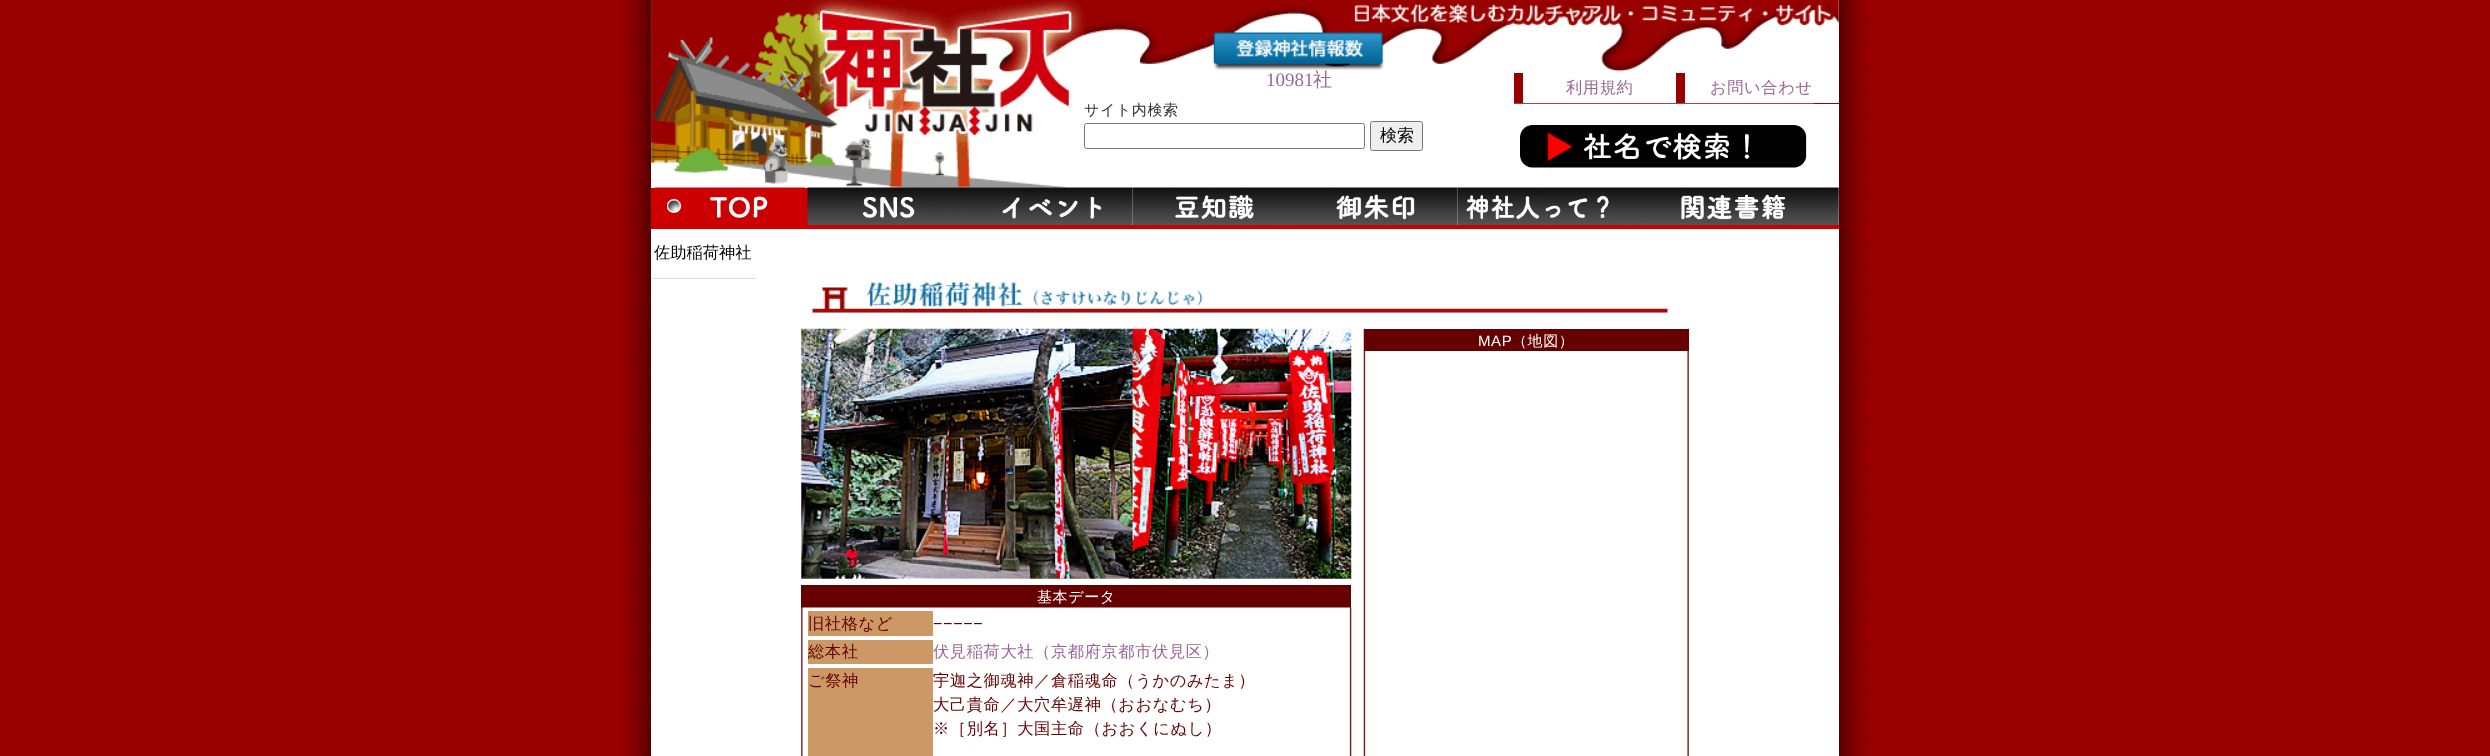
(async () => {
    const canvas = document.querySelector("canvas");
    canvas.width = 2490;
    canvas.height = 756;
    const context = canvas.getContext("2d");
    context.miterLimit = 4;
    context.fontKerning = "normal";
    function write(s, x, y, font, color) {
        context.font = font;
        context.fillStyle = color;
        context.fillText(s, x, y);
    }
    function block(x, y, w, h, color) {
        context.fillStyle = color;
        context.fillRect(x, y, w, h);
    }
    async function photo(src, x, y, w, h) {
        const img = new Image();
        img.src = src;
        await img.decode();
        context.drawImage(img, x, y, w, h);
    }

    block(0, 0, 2490, 756, "rgb(153, 0, 0)");
    await photo("media/1.png", 620, 0, 1250, 756);
    block(651, 0, 1188, 756, "rgb(255, 255, 255)");
    await photo("media/2.png", 651, 0, 1188, 188);
    await photo("media/3.png", 651, 0, 433, 188);
    write("10981", 1266, 86, "19px Liberation Serif", "rgb(153, 102, 153)");
    write("社", 1313, 86, "500 19px WenQuanYi Zen Hei", "rgb(153, 102, 153)");
    context.letterSpacing = "0.6px";
    write("サイト内検索", 1084, 115, "500 15px WenQuanYi Zen Hei", "rgb(51, 51, 51)");
    context.beginPath();
    context.roundRect(1084.5, 123.5, 280, 25, 2);
    context.strokeStyle = "rgb(118, 118, 118)";
    context.stroke();
    context.fillStyle = "rgb(239, 239, 239)";
    context.beginPath();
    context.roundRect(1370.5, 121.5, 52, 29, 2);
    context.fill();
    context.stroke();
    context.letterSpacing = "0px";
    write("検索", 1380, 141, "500 17px WenQuanYi Zen Hei", "rgb(0, 0, 0)");
    block(1523, 103, 153, 1, "rgb(153, 0, 0)");
    block(1514, 73, 9, 31, "rgb(153, 0, 0)");
    context.letterSpacing = "0.6px";
    write("利用規約", 1566, 93, "500 16.25px WenQuanYi Zen Hei", "rgb(153, 102, 153)");
    block(1685, 103, 154, 1, "rgb(153, 0, 0)");
    block(1676, 73, 9, 31, "rgb(153, 0, 0)");
    write("お問い合わせ", 1710, 93, "500 16.25px WenQuanYi Zen Hei", "rgb(153, 102, 153)");
    await photo("media/4.png", 1514, 103, 300, 65);
    block(651, 188, 4, 37, "rgb(204, 0, 0)");
    await photo("media/5.png", 655, 187, 150, 38);
    block(805, 188, 3, 37, "rgb(204, 0, 0)");
    await photo("media/6.png", 807, 187, 163, 38);
    await photo("media/7.png", 970, 187, 163, 38);
    await photo("media/8.png", 1132, 187, 163, 38);
    await photo("media/9.png", 1295, 187, 163, 38);
    await photo("media/10.png", 1457, 187, 163, 38);
    await photo("media/11.png", 1620, 187, 219, 38);
    block(651, 225, 1188, 4, "rgb(204, 0, 0)");
    block(651, 278, 105, 1, "rgb(221, 221, 221)");
    context.letterSpacing = "0px";
    write("佐助稲荷神社", 654, 258, "500 16.25px WenQuanYi Zen Hei", "rgb(0, 0, 0)");
    await photo("media/12.png", 812, 281, 856, 32);
    await photo("media/13.png", 1363, 328, 326, 428);
    block(1364, 329, 325, 22, "rgb(102, 0, 0)");
    context.letterSpacing = "0.6px";
    write("MAP", 1478, 346, "15px Liberation Sans", "rgb(255, 255, 255)");
    write("（地図）", 1512, 346, "500 15px WenQuanYi Zen Hei", "rgb(255, 255, 255)");
    await photo("media/14.png", 801, 328, 551, 251);
    block(801, 585, 550, 23, "rgb(102, 0, 0)");
    write("基本データ", 1037, 602, "500 15px WenQuanYi Zen Hei", "rgb(255, 255, 255)");
    await photo("media/15.png", 801, 607, 551, 149);
    block(808, 611, 125, 25, "rgb(204, 153, 102)");
    write("旧社格など", 808, 629, "500 16.25px WenQuanYi Zen Hei", "rgb(102, 0, 0)");
    write("−−−−−", 933, 629, "16.25px Liberation Sans", "rgb(102, 0, 0)");
    block(808, 640, 125, 24, "rgb(204, 153, 102)");
    write("総本社", 808, 657, "500 16.25px WenQuanYi Zen Hei", "rgb(102, 0, 0)");
    write("伏見稲荷大社（京都府京都市伏見区）", 933, 657, "500 16.25px WenQuanYi Zen Hei", "rgb(153, 102, 153)");
    block(808, 668, 125, 88, "rgb(204, 153, 102)");
    write("ご祭神", 808, 686, "500 16.25px WenQuanYi Zen Hei", "rgb(102, 0, 0)");
    write("宇迦之御魂神／倉稲魂命（うかのみたま）", 933, 686, "500 16.25px WenQuanYi Zen Hei", "rgb(102, 0, 0)");
    write("大己貴命／大穴牟遅神（おおなむち）", 933, 710, "500 16.25px WenQuanYi Zen Hei", "rgb(102, 0, 0)");
    write("※［別名］大国主命（おおくにぬし）", 933, 734, "500 16.25px WenQuanYi Zen Hei", "rgb(102, 0, 0)");
})();
